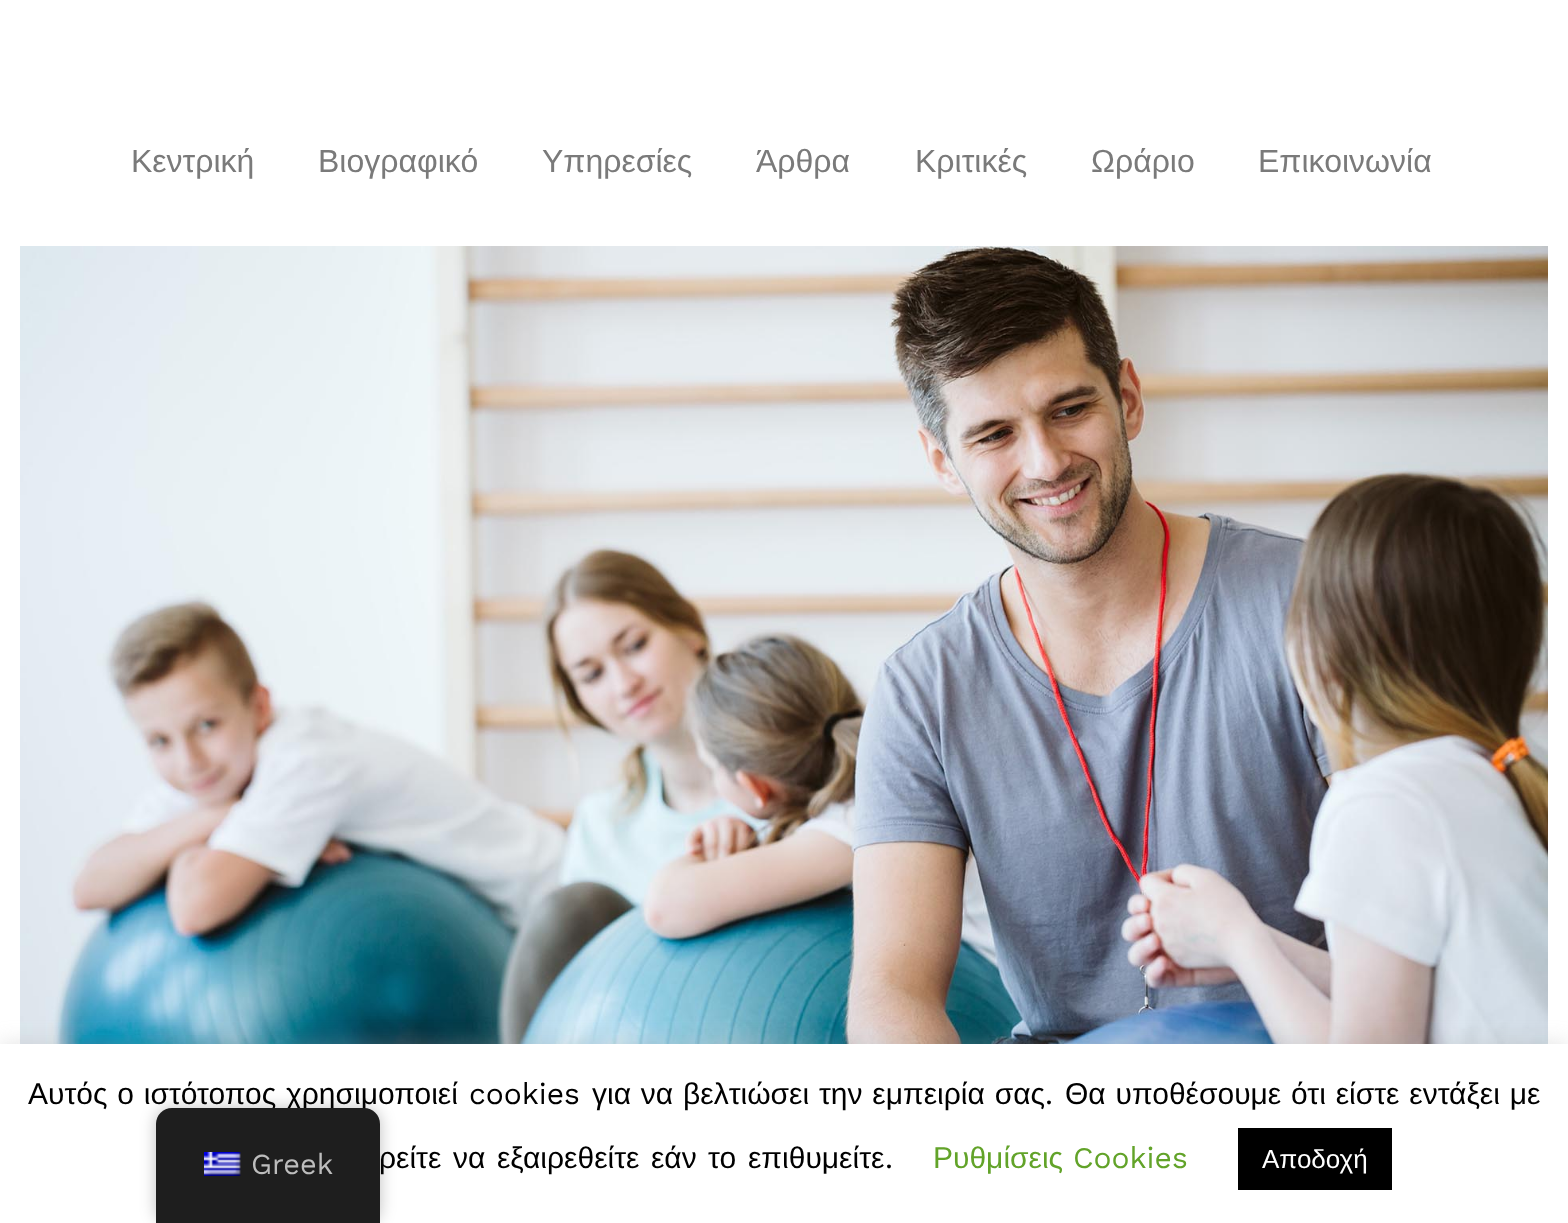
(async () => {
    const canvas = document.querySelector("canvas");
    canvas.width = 1568;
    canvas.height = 1223;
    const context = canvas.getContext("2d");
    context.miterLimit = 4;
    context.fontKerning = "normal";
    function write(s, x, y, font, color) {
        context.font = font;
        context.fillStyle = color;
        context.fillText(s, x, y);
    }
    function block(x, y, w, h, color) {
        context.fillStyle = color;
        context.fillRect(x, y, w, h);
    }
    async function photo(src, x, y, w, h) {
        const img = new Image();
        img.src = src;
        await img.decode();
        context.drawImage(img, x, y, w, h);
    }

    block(0, 0, 1568, 1223, "rgb(255, 255, 255)");
    write("Κεντρική", 131, 172, "32px Liberation Sans", "rgb(122, 122, 122)");
    write("Βιογραφικό", 318, 172, "32px Liberation Sans", "rgb(122, 122, 122)");
    write("Υπηρεσίες", 542, 172, "32px Liberation Sans", "rgb(122, 122, 122)");
    write("Άρθρα", 756, 172, "32px Liberation Sans", "rgb(122, 122, 122)");
    write("Κριτικές", 915, 172, "32px Liberation Sans", "rgb(122, 122, 122)");
    write("Ωράριο", 1091, 172, "32px Liberation Sans", "rgb(122, 122, 122)");
    write("Επικοινωνία", 1258, 172, "32px Liberation Sans", "rgb(122, 122, 122)");
    await photo("media/1.png", 20, 246, 1528, 798);
    context.fillStyle = "rgba(172, 171, 171, 0.3)";
    context.filter = "blur(10px)";
    context.beginPath();
    context.rect(0, 1042, 1568, 180);
    context.fill();
    context.filter = "none";
    block(0, 1044, 1568, 179, "rgb(255, 255, 255)");
    context.wordSpacing = "1.5px";
    write("Αυτός ο ιστότοπος χρησιμοποιεί", 28, 1104, "30px Liberation Sans", "rgb(0, 0, 0)");
    context.wordSpacing = "0px";
    write("cookies", 469, 1104, "30px Work Sans", "rgb(0, 0, 0)");
    context.wordSpacing = "1.5px";
    write("για να βελτιώσει την εμπειρία σας", 592, 1104, "30px Liberation Sans", "rgb(0, 0, 0)");
    context.wordSpacing = "0px";
    write(".", 1045, 1104, "30px Work Sans", "rgb(0, 0, 0)");
    context.wordSpacing = "1.5px";
    write("Θα υποθέσουμε ότι είστε εντάξει με", 1065, 1104, "30px Liberation Sans", "rgb(0, 0, 0)");
    context.wordSpacing = "0px";
    write("ρείτε", 379, 1168, "30px Liberation Sans", "rgb(0, 0, 0)");
    write("να", 453, 1168, "30px Liberation Sans", "rgb(0, 0, 0)");
    write("εξαιρεθείτε", 497, 1168, "30px Liberation Sans", "rgb(0, 0, 0)");
    write("εάν", 651, 1168, "30px Liberation Sans", "rgb(0, 0, 0)");
    write("το", 708, 1168, "30px Liberation Sans", "rgb(0, 0, 0)");
    write("επιθυμείτε", 748, 1168, "30px Liberation Sans", "rgb(0, 0, 0)");
    write(".", 885, 1168, "30px Work Sans", "rgb(0, 0, 0)");
    write("Ρυθμίσεις", 933, 1168, "30px Liberation Sans", "rgb(98, 163, 41)");
    write("Cookies", 1073, 1168, "30px Work Sans", "rgb(98, 163, 41)");
    block(1238, 1128, 154, 62, "rgb(0, 0, 0)");
    write("Αποδοχή", 1262, 1168, "26px Liberation Sans", "rgb(255, 255, 255)");
    context.fillStyle = "rgba(0, 0, 0, 0.25)";
    context.filter = "blur(8px)";
    context.beginPath();
    context.roundRect(156, 1108, 224, 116, 16);
    context.fill();
    context.filter = "none";
    context.fillStyle = "rgb(30, 30, 30)";
    context.beginPath();
    context.moveTo(172, 1108);
    context.lineTo(364, 1108);
    context.bezierCurveTo(373, 1108, 380, 1115, 380, 1124);
    context.lineTo(380, 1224);
    context.lineTo(156, 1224);
    context.lineTo(156, 1124);
    context.bezierCurveTo(156, 1115, 163, 1108, 172, 1108);
    context.closePath();
    context.fill();
    await photo("media/2.png", 204, 1152, 37, 24);
    write("Greek", 251, 1174, "29px Work Sans", "rgb(189, 189, 189)");
})();
